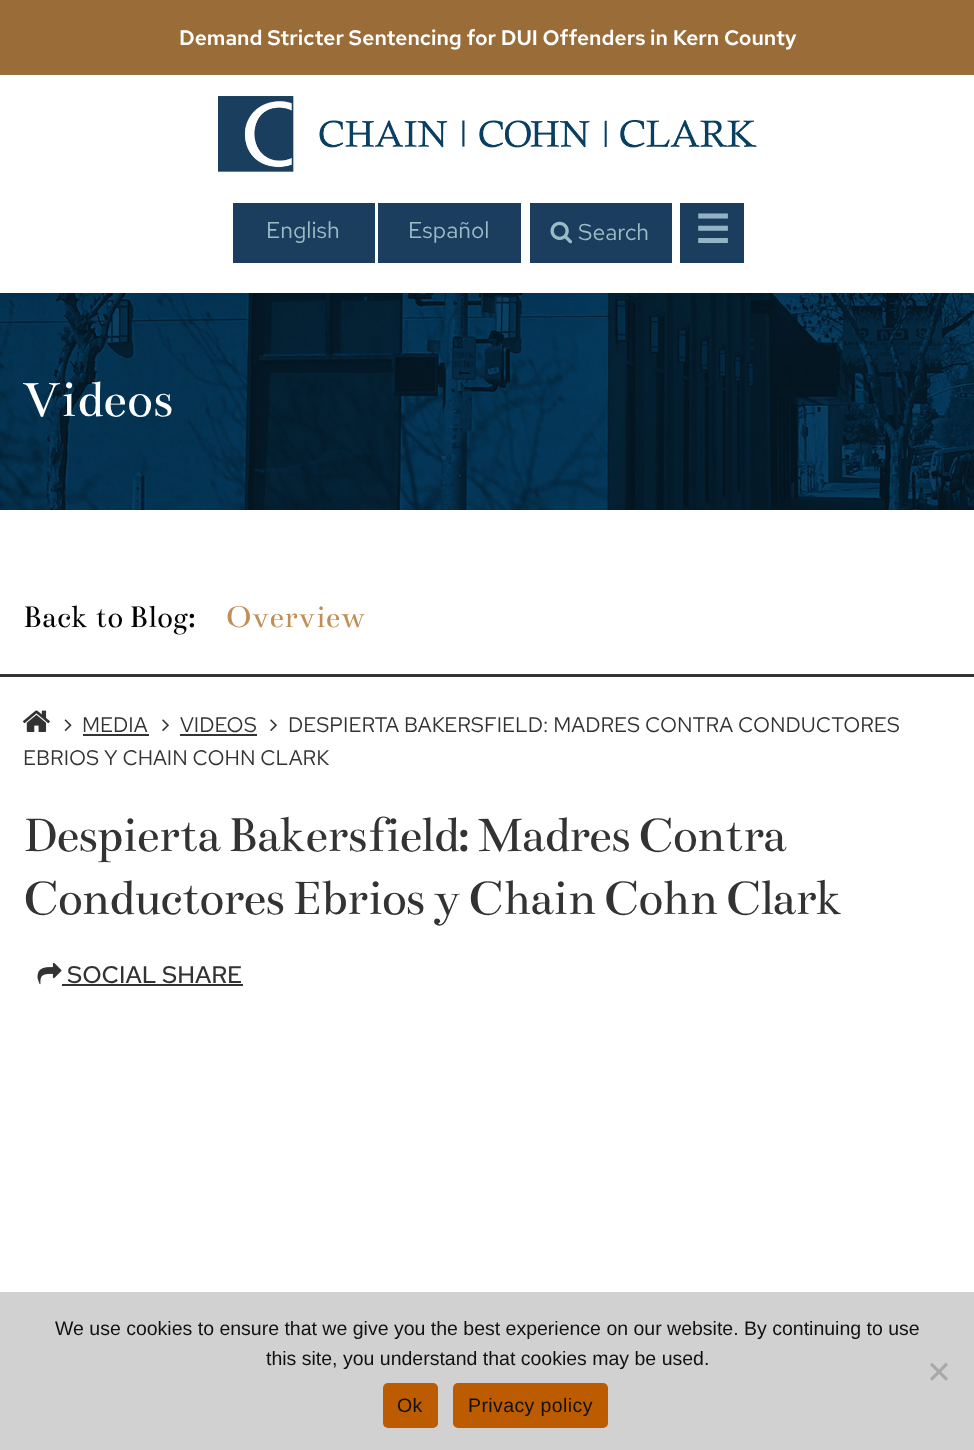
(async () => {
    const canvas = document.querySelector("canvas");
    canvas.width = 974;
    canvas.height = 1450;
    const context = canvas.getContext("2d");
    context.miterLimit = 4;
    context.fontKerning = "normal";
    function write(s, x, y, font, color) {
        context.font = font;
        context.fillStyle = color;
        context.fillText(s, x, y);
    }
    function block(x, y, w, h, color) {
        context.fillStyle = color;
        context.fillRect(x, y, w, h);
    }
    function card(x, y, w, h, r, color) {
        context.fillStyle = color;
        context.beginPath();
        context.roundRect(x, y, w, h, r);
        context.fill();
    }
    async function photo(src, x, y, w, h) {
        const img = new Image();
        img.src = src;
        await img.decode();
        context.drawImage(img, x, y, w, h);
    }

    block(0, 0, 974, 1450, "rgb(255, 255, 255)");
    await photo("media/3.png", 0, 293, 974, 217);
    context.fillStyle = "rgba(0, 0, 0, 0.4)";
    context.filter = "blur(6px)";
    context.beginPath();
    context.rect(0, 0, 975, 285);
    context.fill();
    context.filter = "none";
    block(0, 0, 974, 75, "rgb(153, 108, 56)");
    write("Demand Stricter Sentencing for DUI Offenders in Kern County", 179, 45, "600 21px Red Hat Text", "rgb(255, 255, 255)");
    block(0, 75, 974, 218, "rgb(255, 255, 255)");
    await photo("media/1.png", 218, 96, 539, 76);
    block(233, 203, 142, 60, "rgb(27, 62, 94)");
    write("English", 266, 238, "23px Red Hat Text", "rgb(154, 188, 199)");
    block(378, 203, 143, 60, "rgb(27, 62, 94)");
    write("Español", 408, 238, "23px Red Hat Text", "rgb(154, 188, 199)");
    block(530, 203, 142, 60, "rgb(27, 62, 94)");
    await photo("media/2.png", 550, 221, 23, 23);
    write("Search", 578, 240, "23px Red Hat Text", "rgb(154, 188, 199)");
    block(680, 203, 64, 60, "rgb(27, 62, 94)");
    write("☰", 695, 243, "bold 39px DejaVu Sans", "rgb(146, 180, 196)");
    write("Videos", 23, 416, "54px Bentham", "rgb(255, 255, 255)");
    block(0, 674, 974, 3, "rgb(51, 51, 51)");
    write("Back to Blog:", 23, 627, "33px Bentham", "rgb(0, 0, 0)");
    write("Overview", 226, 627, "33px Bentham", "rgb(193, 143, 86)");
    await photo("media/4.png", 23, 710, 27, 22);
    await photo("media/5.png", 64, 719, 8, 12);
    write("MEDIA", 82, 732, "21px Red Hat Text", "rgb(51, 51, 51)");
    block(83, 734, 66, 2, "rgb(51, 51, 51)");
    await photo("media/6.png", 162, 719, 7, 12);
    write("VIDEOS", 180, 732, "21px Red Hat Text", "rgb(51, 51, 51)");
    block(180, 734, 77, 2, "rgb(51, 51, 51)");
    await photo("media/6.png", 270, 719, 7, 12);
    write("DESPIERTA BAKERSFIELD: MADRES CONTRA CONDUCTORES", 288, 732, "21px Red Hat Text", "rgb(51, 51, 51)");
    write("EBRIOS Y CHAIN COHN CLARK", 23, 765, "21px Red Hat Text", "rgb(51, 51, 51)");
    context.letterSpacing = "-1.5px";
    write("Despierta Bakersfield: Madres Contra", 23, 851, "52.5px Bentham", "rgb(51, 51, 51)");
    write("Conductores Ebrios y Chain Cohn Clark", 23, 914, "52.5px Bentham", "rgb(51, 51, 51)");
    await photo("media/7.png", 37, 962, 25, 23);
    context.letterSpacing = "0px";
    write("SOCIAL SHARE", 67, 983, "500 24px Red Hat Text", "rgb(51, 51, 51)");
    block(62, 984, 181, 2, "rgb(51, 51, 51)");
    block(0, 1292, 974, 158, "rgb(209, 209, 209)");
    write("We use cookies to ensure that we give you the best experience on our website. By continuing to use", 55, 1335, "19.5px Liberation Sans", "rgb(17, 17, 17)");
    write("this site, you understand that cookies may be used.", 266, 1365, "19.5px Liberation Sans", "rgb(17, 17, 17)");
    context.fillStyle = "rgb(169, 169, 169)";
    context.beginPath();
    context.moveTo(946, 1362.5);
    context.lineTo(948, 1365);
    context.lineTo(932, 1381);
    context.lineTo(930, 1378.5);
    context.closePath();
    context.fill();
    context.beginPath();
    context.moveTo(930, 1365);
    context.lineTo(932, 1362.5);
    context.lineTo(948, 1378.5);
    context.lineTo(946, 1381);
    context.closePath();
    context.fill();
    card(383, 1383, 55, 45, 5, "rgb(189, 91, 0)");
    context.letterSpacing = "0.4px";
    write("Ok", 397, 1412, "19.5px Liberation Sans", "rgb(17, 17, 17)");
    card(453, 1383, 155, 45, 5, "rgb(189, 91, 0)");
    write("Privacy policy", 468, 1412, "19.5px Liberation Sans", "rgb(17, 17, 17)");
})();
